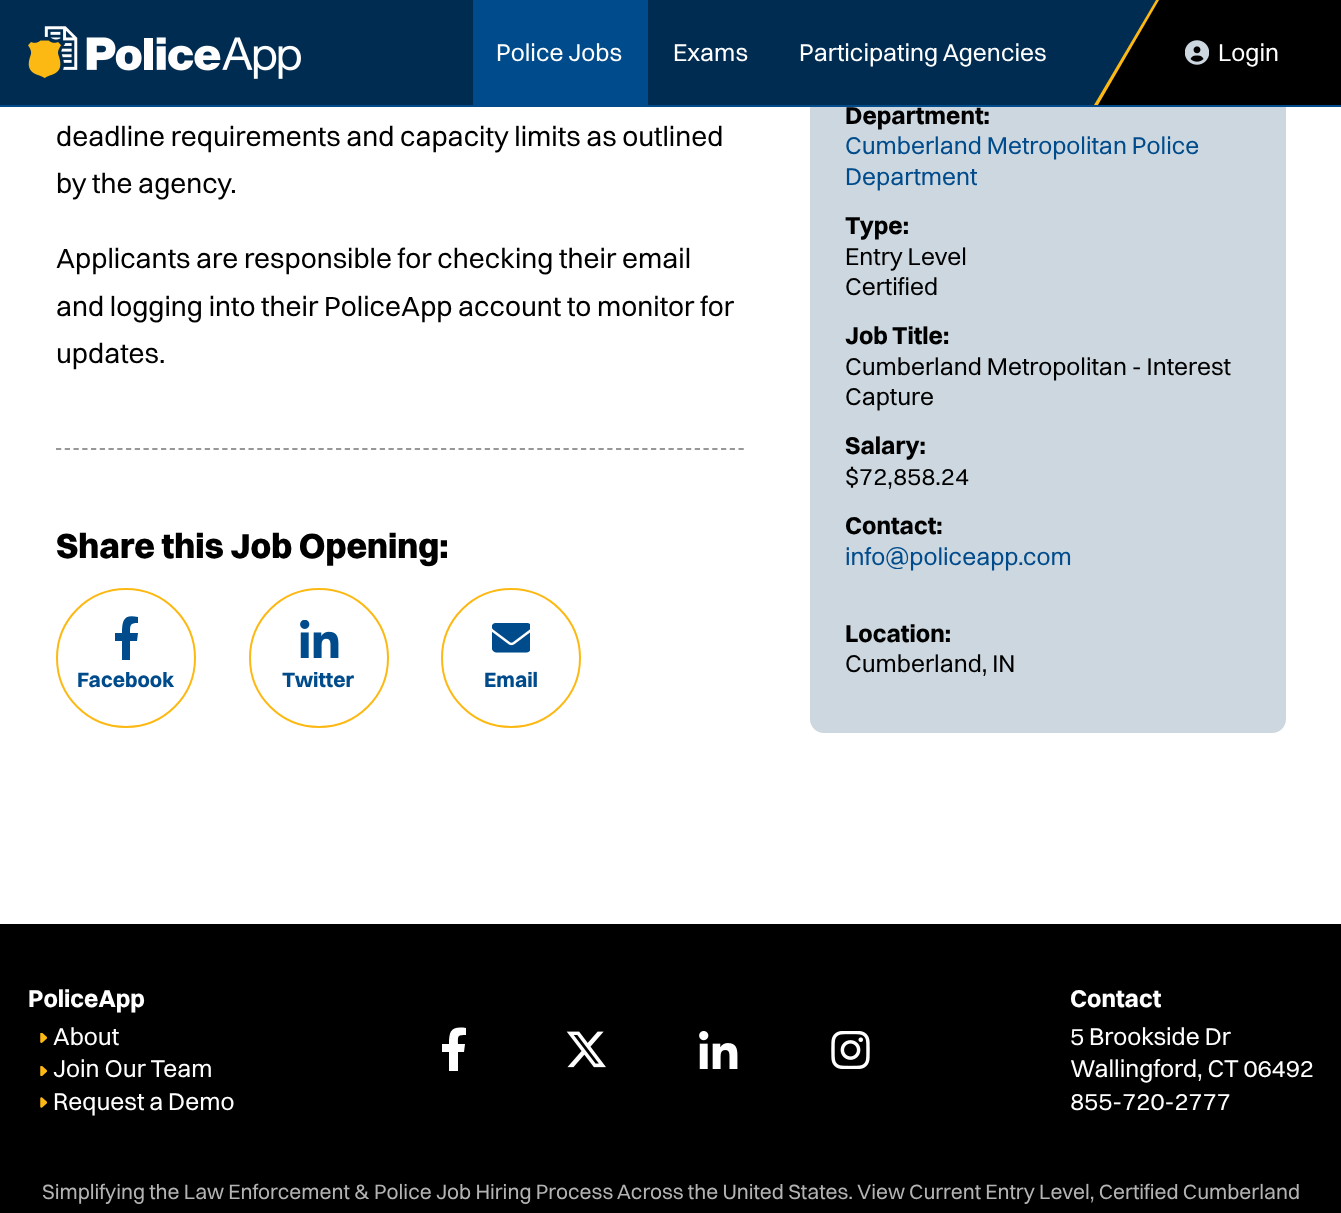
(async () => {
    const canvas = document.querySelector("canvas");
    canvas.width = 1341;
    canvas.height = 1213;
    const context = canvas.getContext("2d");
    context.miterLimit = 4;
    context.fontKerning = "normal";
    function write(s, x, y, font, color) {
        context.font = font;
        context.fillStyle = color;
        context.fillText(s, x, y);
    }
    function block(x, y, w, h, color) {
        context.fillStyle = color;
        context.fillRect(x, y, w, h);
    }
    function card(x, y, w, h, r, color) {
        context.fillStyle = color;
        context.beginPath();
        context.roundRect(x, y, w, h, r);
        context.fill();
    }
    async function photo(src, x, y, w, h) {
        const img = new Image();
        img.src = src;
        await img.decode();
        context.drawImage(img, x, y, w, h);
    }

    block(0, 0, 1341, 1213, "rgb(0, 0, 0)");
    block(0, 107, 1341, 817, "rgb(255, 255, 255)");
    card(810, 49, 476, 684, 14, "rgb(204, 215, 223)");
    block(0, 0, 1156, 105, "rgb(0, 44, 82)");
    block(0, 105, 1341, 2, "rgb(0, 75, 139)");
    await photo("media/1.png", 28, 26, 273, 53);
    block(473, 0, 175, 105, "rgb(0, 75, 139)");
    write("Police Jobs", 496, 61, "24.5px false", "rgb(255, 255, 255)");
    write("Exams", 673, 61, "24.5px false", "rgb(255, 255, 255)");
    write("Participating Agencies", 799, 61, "24.5px false", "rgb(255, 255, 255)");
    context.fillStyle = "rgb(253, 185, 19)";
    context.beginPath();
    context.moveTo(1156, 0);
    context.lineTo(1094, 105);
    context.lineTo(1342, 105);
    context.lineTo(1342, 0);
    context.closePath();
    context.fill();
    context.fillStyle = "rgb(0, 0, 0)";
    context.beginPath();
    context.moveTo(1159, 0);
    context.lineTo(1098, 105);
    context.lineTo(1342, 105);
    context.lineTo(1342, 0);
    context.closePath();
    context.fill();
    await photo("media/2.png", 1185, 40, 24, 25);
    write("Login", 1218, 61, "24.5px false", "rgb(255, 255, 255)");
    write("deadline requirements and capacity limits as outlined", 56, 146, "28px false", "rgb(0, 0, 0)");
    write("by the agency.", 56, 193, "28px false", "rgb(0, 0, 0)");
    write("Applicants are responsible for checking their email", 56, 268, "28px false", "rgb(0, 0, 0)");
    write("and logging into their PoliceApp account to monitor for", 56, 316, "28px false", "rgb(0, 0, 0)");
    write("updates.", 56, 363, "28px false", "rgb(0, 0, 0)");
    context.beginPath();
    context.moveTo(56, 449);
    context.lineTo(744, 449);
    context.strokeStyle = "rgb(151, 151, 151)";
    context.lineWidth = 1.8;
    context.setLineDash([5.25, 3.5]);
    context.stroke();
    write("Share this Job Opening:", 56, 558, "800 35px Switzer", "rgb(0, 0, 0)");
    context.beginPath();
    context.arc(126, 658, 69, 0, Math.PI * 2);
    context.strokeStyle = "rgb(253, 185, 19)";
    context.lineWidth = 2;
    context.setLineDash([]);
    context.stroke();
    context.fillStyle = "rgb(0, 75, 139)";
    context.beginPath();
    context.moveTo(137, 641);
    context.lineTo(138, 633);
    context.lineTo(130, 633);
    context.bezierCurveTo(130, 625, 130, 623, 138, 623);
    context.lineTo(138, 617);
    context.bezierCurveTo(124, 614, 122, 620, 122, 633);
    context.lineTo(115, 633);
    context.lineTo(115, 641);
    context.lineTo(122, 641);
    context.lineTo(122, 660);
    context.lineTo(130, 660);
    context.lineTo(130, 641);
    context.closePath();
    context.fill();
    write("Facebook", 77, 687, "bold 21px false", "rgb(0, 75, 139)");
    context.beginPath();
    context.arc(319, 658, 69, 0, Math.PI * 2);
    context.stroke();
    await photo("media/3.png", 300, 620, 39, 38);
    write("Twitter", 282, 687, "bold 21px false", "rgb(0, 75, 139)");
    context.beginPath();
    context.arc(511, 658, 69, 0, Math.PI * 2);
    context.stroke();
    await photo("media/4.png", 492, 623, 38, 30);
    write("Email", 484, 687, "bold 21px false", "rgb(0, 75, 139)");
    write("Department:", 845, 124, "bold 24.5px false", "rgb(0, 0, 0)");
    write("Cumberland Metropolitan Police", 845, 154, "24.5px false", "rgb(0, 75, 139)");
    write("Department", 845, 185, "24.5px false", "rgb(0, 75, 139)");
    write("Type:", 845, 234, "bold 24.5px false", "rgb(0, 0, 0)");
    write("Entry Level", 845, 265, "24.5px false", "rgb(0, 0, 0)");
    write("Certified", 845, 295, "24.5px false", "rgb(0, 0, 0)");
    write("Job Title:", 845, 344, "bold 24.5px false", "rgb(0, 0, 0)");
    write("Cumberland Metropolitan - Interest", 845, 375, "24.5px false", "rgb(0, 0, 0)");
    write("Capture", 845, 405, "24.5px false", "rgb(0, 0, 0)");
    write("Salary:", 845, 454, "bold 24.5px false", "rgb(0, 0, 0)");
    write("$72,858.24", 845, 485, "24.5px false", "rgb(0, 0, 0)");
    write("Contact:", 845, 534, "bold 24.5px false", "rgb(0, 0, 0)");
    write("info@policeapp.com", 845, 565, "24.5px false", "rgb(0, 75, 139)");
    write("Location:", 845, 642, "bold 24.5px false", "rgb(0, 0, 0)");
    write("Cumberland, IN", 845, 672, "24.5px false", "rgb(0, 0, 0)");
    write("PoliceApp", 28, 1007, "bold 24.5px false", "rgb(255, 255, 255)");
    await photo("media/5.png", 40, 1033, 7, 10);
    write("About", 53, 1045, "24.5px false", "rgb(255, 255, 255)");
    await photo("media/6.png", 40, 1066, 7, 10);
    write("Join Our Team", 53, 1077, "24.5px false", "rgb(255, 255, 255)");
    await photo("media/7.png", 40, 1097, 7, 11);
    write("Request a Demo", 53, 1110, "24.5px false", "rgb(255, 255, 255)");
    context.beginPath();
    context.moveTo(464, 1052);
    context.lineTo(465, 1044);
    context.lineTo(458, 1044);
    context.bezierCurveTo(458, 1036, 457, 1035, 466, 1035);
    context.lineTo(466, 1028);
    context.bezierCurveTo(451, 1026, 449, 1031, 449, 1044);
    context.lineTo(442, 1044);
    context.lineTo(442, 1052);
    context.lineTo(449, 1052);
    context.lineTo(449, 1071);
    context.lineTo(458, 1071);
    context.lineTo(458, 1052);
    context.closePath();
    context.fill();
    await photo("media/8.png", 566, 1031, 40, 37);
    await photo("media/9.png", 699, 1031, 39, 38);
    await photo("media/10.png", 831, 1031, 39, 38);
    write("Contact", 1070, 1007, "bold 24.5px false", "rgb(255, 255, 255)");
    write("5 Brookside Dr", 1070, 1045, "24.5px false", "rgb(255, 255, 255)");
    write("Wallingford, CT 06492", 1070, 1077, "24.5px false", "rgb(255, 255, 255)");
    write("855-720-2777", 1070, 1110, "24.5px false", "rgb(255, 255, 255)");
    write("Simplifying the Law Enforcement & Police Job Hiring Process Across the United States.", 42, 1199, "21px false", "rgb(179, 179, 179)");
    write("View Current Entry Level, Certified Cumberland", 857, 1199, "21px false", "rgb(179, 179, 179)");
})();
